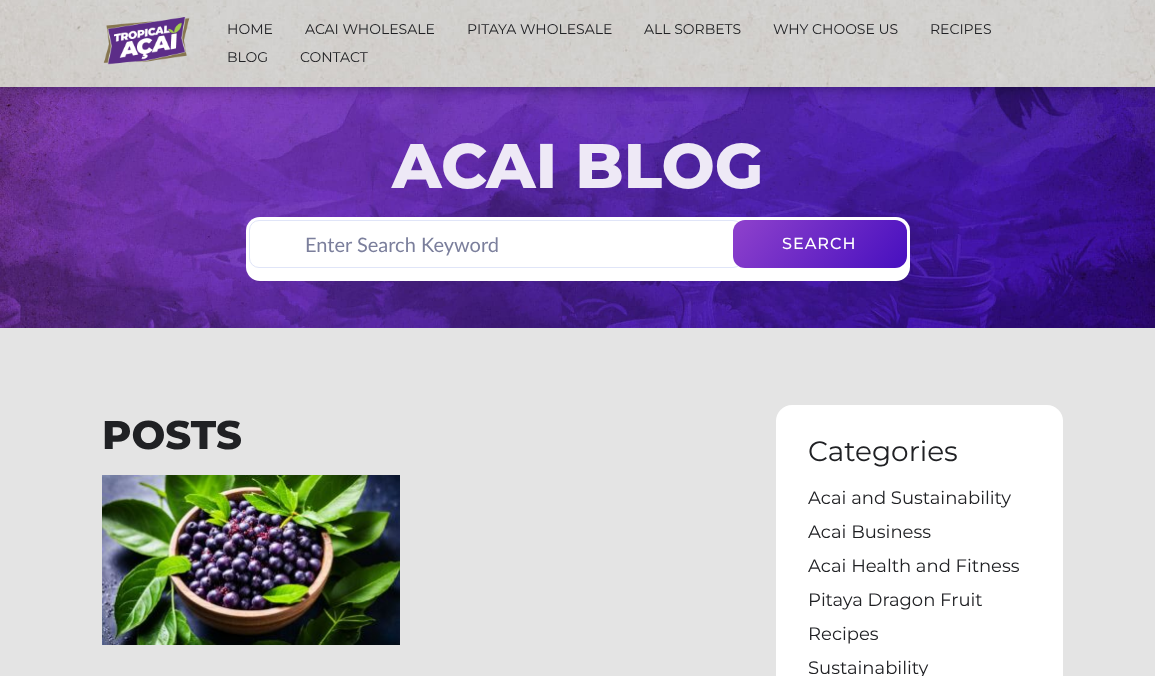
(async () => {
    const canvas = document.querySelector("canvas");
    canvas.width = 1155;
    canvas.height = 676;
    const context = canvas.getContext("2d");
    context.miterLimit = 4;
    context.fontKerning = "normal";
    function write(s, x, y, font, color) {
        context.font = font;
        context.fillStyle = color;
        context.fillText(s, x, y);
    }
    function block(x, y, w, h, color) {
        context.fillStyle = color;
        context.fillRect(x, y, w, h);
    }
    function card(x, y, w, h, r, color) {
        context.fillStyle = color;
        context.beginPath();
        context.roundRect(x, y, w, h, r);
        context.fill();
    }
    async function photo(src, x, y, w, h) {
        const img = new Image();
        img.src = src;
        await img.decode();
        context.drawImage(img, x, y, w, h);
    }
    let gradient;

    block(0, 0, 1155, 676, "rgb(255, 255, 255)");
    await photo("media/3.png", 0, 87, 1155, 241);
    context.fillStyle = "rgba(0, 0, 0, 0.42)";
    context.filter = "blur(7px)";
    context.beginPath();
    context.rect(0, 0, 1155, 87);
    context.fill();
    context.filter = "none";
    await photo("media/1.png", 0, 0, 1155, 87);
    await photo("media/2.png", 103, 17, 87, 48);
    write("HOME", 227, 34, "14px Montserrat", "rgb(32, 33, 36)");
    write("ACAI WHOLESALE", 305, 34, "14px Montserrat", "rgb(32, 33, 36)");
    write("PITAYA WHOLESALE", 467, 34, "14px Montserrat", "rgb(32, 33, 36)");
    write("ALL SORBETS", 644, 34, "14px Montserrat", "rgb(32, 33, 36)");
    write("WHY CHOOSE US", 773, 34, "14px Montserrat", "rgb(32, 33, 36)");
    write("RECIPES", 930, 34, "14px Montserrat", "rgb(32, 33, 36)");
    write("BLOG", 227, 62, "14px Montserrat", "rgb(32, 33, 36)");
    write("CONTACT", 300, 62, "14px Montserrat", "rgb(32, 33, 36)");
    write("ACAI BLOG", 392, 188, "800 63px Montserrat", "rgb(238, 233, 246)");
    card(246, 217, 664, 64, 14, "rgb(255, 255, 255)");
    context.beginPath();
    context.roundRect(249.5, 220.5, 493, 47, 9.5);
    context.strokeStyle = "rgb(224, 229, 248)";
    context.stroke();
    write("Enter Search Keyword", 305, 252, "20px Lato", "rgb(123, 127, 156)");
    gradient = context.createLinearGradient(757, 191, 883, 297);
    gradient.addColorStop(0, "rgb(143, 66, 204)");
    gradient.addColorStop(1, "rgb(71, 15, 191)");
    context.fillStyle = gradient;
    context.beginPath();
    context.roundRect(733, 220, 174, 48, 12);
    context.fill();
    context.letterSpacing = "1px";
    write("SEARCH", 782, 249, "500 16px Montserrat", "rgb(255, 255, 255)");
    block(0, 328, 1155, 348, "rgb(228, 228, 228)");
    context.letterSpacing = "0px";
    write("POSTS", 102, 449, "800 40px Montserrat", "rgb(32, 33, 36)");
    await photo("media/4.png", 102, 475, 298, 170);
    card(776, 405, 287, 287, 16, "rgb(255, 255, 255)");
    write("Categories", 808, 461, "28px Montserrat", "rgb(32, 33, 36)");
    write("Acai and Sustainability", 808, 504, "18px Montserrat", "rgb(32, 33, 36)");
    write("Acai Business", 808, 538, "18px Montserrat", "rgb(32, 33, 36)");
    write("Acai Health and Fitness", 808, 572, "18px Montserrat", "rgb(32, 33, 36)");
    write("Pitaya Dragon Fruit", 808, 606, "18px Montserrat", "rgb(32, 33, 36)");
    write("Recipes", 808, 640, "18px Montserrat", "rgb(32, 33, 36)");
    write("Sustainability", 808, 674, "18px Montserrat", "rgb(32, 33, 36)");
})();
